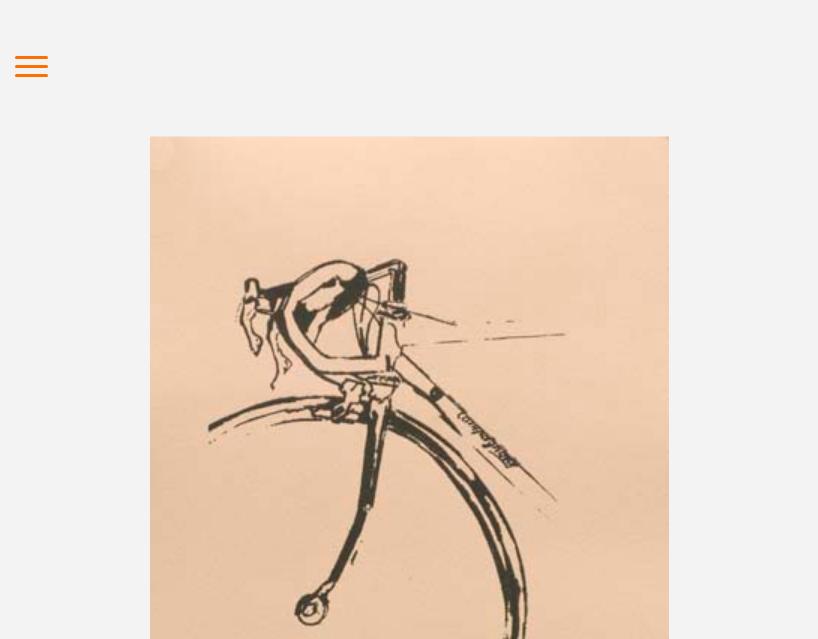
(async () => {
    const canvas = document.querySelector("canvas");
    canvas.width = 818;
    canvas.height = 639;
    const context = canvas.getContext("2d");
    context.miterLimit = 4;
    context.fontKerning = "normal";
    function block(x, y, w, h, color) {
        context.fillStyle = color;
        context.fillRect(x, y, w, h);
    }
    function card(x, y, w, h, r, color) {
        context.fillStyle = color;
        context.beginPath();
        context.roundRect(x, y, w, h, r);
        context.fill();
    }
    async function photo(src, x, y, w, h) {
        const img = new Image();
        img.src = src;
        await img.decode();
        context.drawImage(img, x, y, w, h);
    }

    block(0, 0, 818, 639, "rgb(243, 243, 243)");
    card(15, 56, 33, 3, 1.5, "rgb(255, 111, 0)");
    card(15, 65, 33, 3, 1.5, "rgb(255, 111, 0)");
    card(15, 74, 33, 3, 1.5, "rgb(255, 111, 0)");
    await photo("media/1.png", 150, 136, 519, 503);
})();
